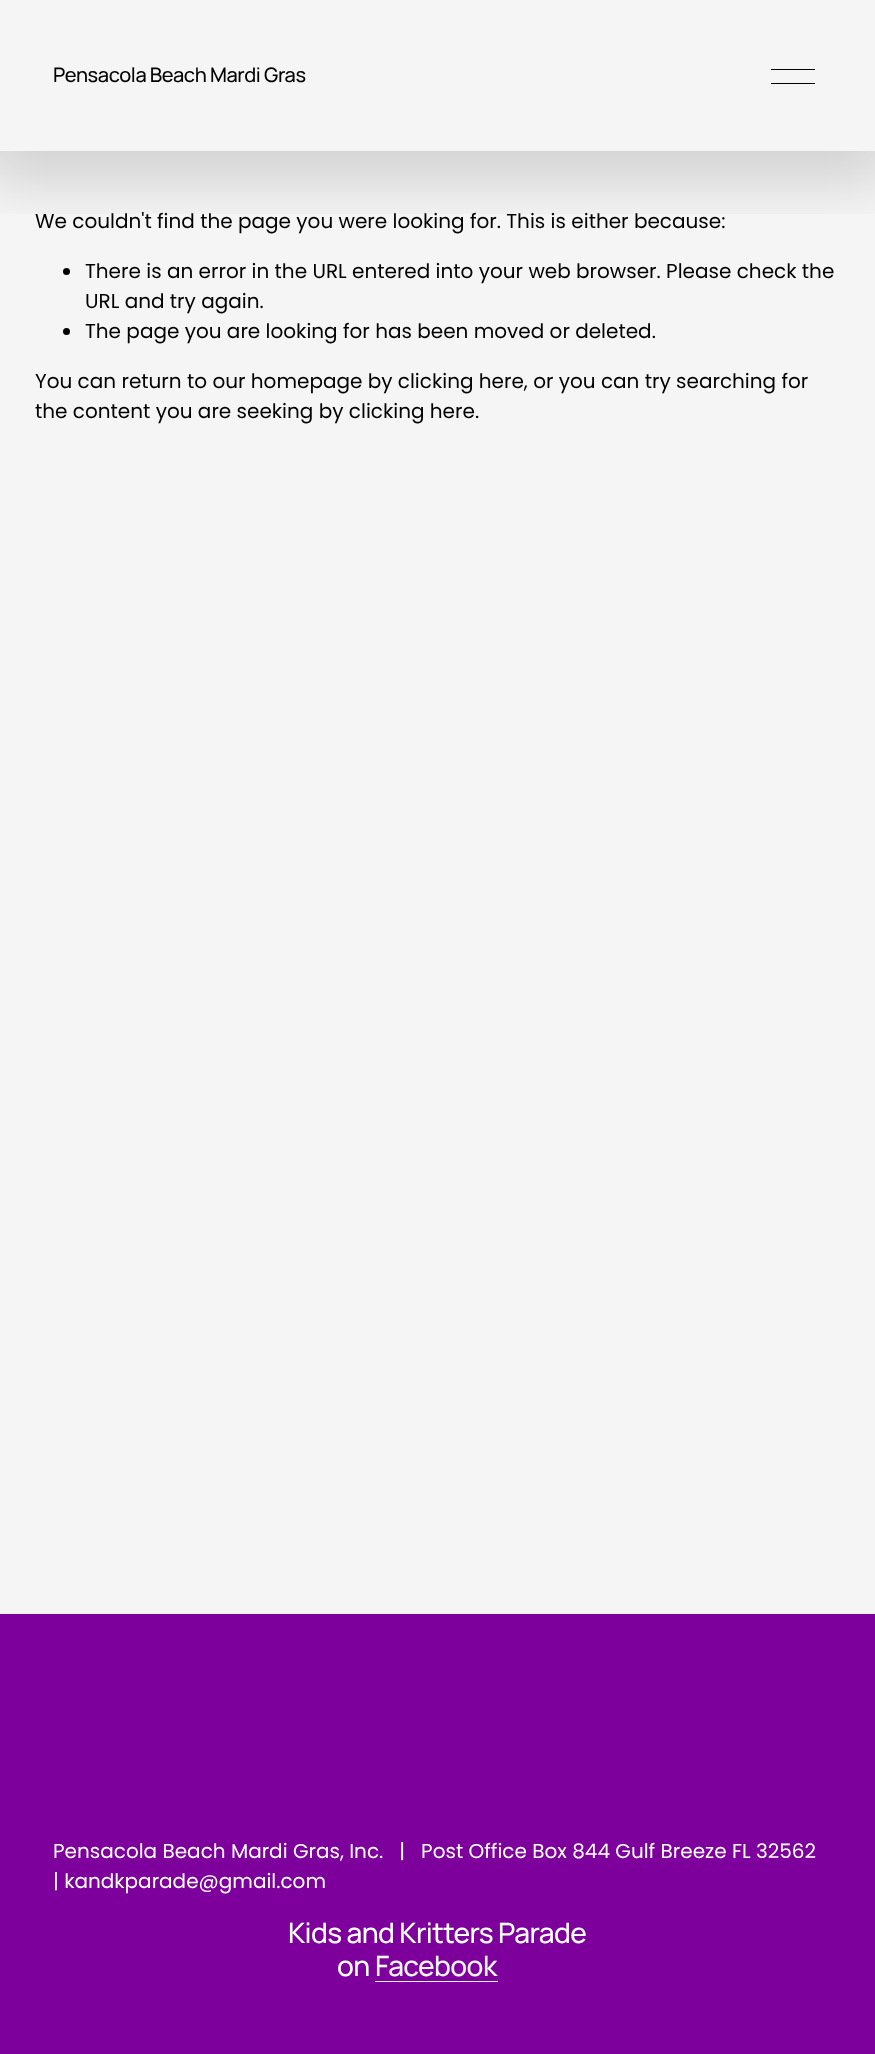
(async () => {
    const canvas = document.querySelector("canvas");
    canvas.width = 875;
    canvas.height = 2054;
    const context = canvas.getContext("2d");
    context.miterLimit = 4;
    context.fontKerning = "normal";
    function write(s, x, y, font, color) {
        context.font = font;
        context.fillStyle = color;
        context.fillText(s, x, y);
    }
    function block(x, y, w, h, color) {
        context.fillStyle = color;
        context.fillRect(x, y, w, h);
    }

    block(0, 0, 875, 2054, "rgb(245, 245, 245)");
    context.fillStyle = "rgb(0, 0, 0)";
    context.beginPath();
    context.arc(66.5, 271.5, 3.5, 0, Math.PI * 2);
    context.fill();
    context.save();
    context.beginPath();
    context.rect(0, 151, 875, 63);
    context.clip();
    context.fillStyle = "rgba(0, 0, 0, 0.15)";
    context.filter = "blur(30px)";
    context.beginPath();
    context.rect(-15, 0, 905, 181);
    context.fill();
    context.filter = "none";
    context.restore();
    context.letterSpacing = "-0.4px";
    write("Pensacola Beach Mardi Gras", 53, 82, "500 20px Manrope", "rgb(0, 0, 0)");
    block(771, 69, 44, 1, "rgb(0, 0, 0)");
    block(771, 83, 44, 1, "rgb(0, 0, 0)");
    context.letterSpacing = "0px";
    write("We couldn't find the page you were looking for. This is either because:", 35, 228, "20px Poppins", "rgb(0, 0, 0)");
    write("There is an error in the URL entered into your web browser. Please check the", 85, 278, "20px Poppins", "rgb(0, 0, 0)");
    write("URL and try again.", 85, 308, "20px Poppins", "rgb(0, 0, 0)");
    context.beginPath();
    context.arc(66.5, 331.5, 3.5, 0, Math.PI * 2);
    context.fill();
    write("The page you are looking for has been moved or deleted.", 85, 338, "20px Poppins", "rgb(0, 0, 0)");
    write("You can return to our homepage by clicking here, or you can try searching for", 35, 388, "20px Poppins", "rgb(0, 0, 0)");
    write("the content you are seeking by clicking here.", 35, 418, "20px Poppins", "rgb(0, 0, 0)");
    block(0, 1614, 875, 440, "rgb(125, 0, 157)");
    write("Pensacola Beach Mardi Gras, Inc.   |   Post Office Box 844 Gulf Breeze FL 32562", 53, 1858, "20px Poppins", "rgb(255, 255, 255)");
    write("| kandkparade@gmail.com", 53, 1888, "20px Poppins", "rgb(255, 255, 255)");
    context.letterSpacing = "-0.6px";
    write("Kids and Kritters Parade", 288, 1943, "500 28.1px Manrope", "rgb(255, 255, 255)");
    write("on", 337, 1976, "500 28.1px Manrope", "rgb(255, 255, 255)");
    write("Facebook", 375, 1976, "500 28.1px Manrope", "rgb(245, 245, 245)");
    block(375, 1981, 123, 1, "rgb(245, 245, 245)");
})();
